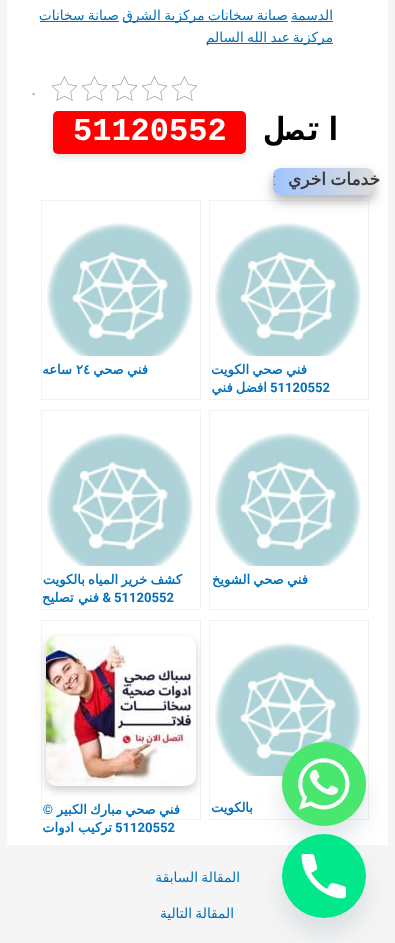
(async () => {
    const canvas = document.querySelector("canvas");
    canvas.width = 395;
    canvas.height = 943;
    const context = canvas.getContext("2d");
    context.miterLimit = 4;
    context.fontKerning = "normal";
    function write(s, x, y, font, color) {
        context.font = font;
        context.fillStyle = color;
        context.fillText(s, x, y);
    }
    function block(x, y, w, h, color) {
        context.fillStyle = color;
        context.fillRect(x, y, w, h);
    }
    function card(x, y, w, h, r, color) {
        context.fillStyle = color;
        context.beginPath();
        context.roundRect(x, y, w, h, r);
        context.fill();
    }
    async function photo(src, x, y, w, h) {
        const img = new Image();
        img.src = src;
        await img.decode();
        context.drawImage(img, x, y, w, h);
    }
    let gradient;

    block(0, 0, 395, 943, "rgb(245, 245, 245)");
    block(7, 0, 381, 845, "rgb(255, 255, 255)");
    context.direction = "rtl";
    write("الدسمة", 333, 20, "13.75px DejaVu Sans", "rgb(1, 112, 185)");
    block(291, 21, 42, 1, "rgb(1, 112, 185)");
    block(123, 21, 165, 1, "rgb(1, 112, 185)");
    context.wordSpacing = "-1px";
    write("صيانة سخانات مركزية الشرق", 288, 20, "13.75px DejaVu Sans", "rgb(1, 112, 185)");
    block(40, 21, 79, 1, "rgb(1, 112, 185)");
    write("صيانة سخانات", 119, 20, "13.75px DejaVu Sans", "rgb(1, 112, 185)");
    block(206, 43, 127, 1, "rgb(1, 112, 185)");
    context.wordSpacing = "0px";
    write("مركزية", 333, 42, "13.75px DejaVu Sans", "rgb(1, 112, 185)");
    context.wordSpacing = "-1px";
    write("عبد الله السالم", 290, 42, "13.75px DejaVu Sans", "rgb(1, 112, 185)");
    await photo("media/1.png", 172, 76, 25, 25);
    await photo("media/1.png", 142, 76, 25, 25);
    await photo("media/1.png", 112, 76, 25, 25);
    await photo("media/1.png", 82, 76, 25, 25);
    await photo("media/1.png", 52, 76, 25, 25);
    context.wordSpacing = "0px";
    context.direction = "ltr";
    write(".", 31, 95, "20px Roboto", "rgb(165, 167, 172)");
    context.direction = "rtl";
    write("اتصل", 343, 140, "bold 32px DejaVu Sans Mono", "rgb(0, 0, 0)");
    context.fillStyle = "rgba(0, 0, 0, 0.1)";
    context.filter = "blur(3px)";
    context.beginPath();
    context.roundRect(53, 115, 193, 43, 5);
    context.fill();
    context.filter = "none";
    card(53, 111, 193, 43, 5, "rgb(255, 0, 0)");
    context.direction = "ltr";
    write("51120552", 73, 140, "bold 32px Liberation Mono", "rgb(255, 255, 255)");
    context.fillStyle = "rgba(0, 0, 0, 0.3)";
    context.filter = "blur(6px)";
    context.beginPath();
    context.roundRect(273, 174, 101, 27, 8);
    context.fill();
    context.filter = "none";
    gradient = context.createLinearGradient(273, 182, 374, 182);
    gradient.addColorStop(0, "rgb(160, 196, 255)");
    gradient.addColorStop(1, "rgb(220, 220, 220)");
    context.fillStyle = gradient;
    context.beginPath();
    context.roundRect(273, 168, 101, 27, 8);
    context.fill();
    context.letterSpacing = "1px";
    context.wordSpacing = "-2px";
    context.direction = "rtl";
    write("خدمات اخري", 380, 185, "bold 17px DejaVu Sans", "rgb(58, 58, 58)");
    context.wordSpacing = "0px";
    write(":", 277, 185, "100 17px Roboto", "rgb(58, 58, 58)");
    context.strokeStyle = "rgba(128, 128, 128, 0.1)";
    context.strokeRect(209.5, 200.5, 159, 199);
    await photo("media/2.png", 214, 222, 147, 134);
    context.letterSpacing = "0px";
    context.wordSpacing = "-1px";
    write("فني صحي الكويت", 307, 374, "bold 13.1px DejaVu Sans", "rgb(1, 112, 185)");
    context.wordSpacing = "0px";
    context.direction = "ltr";
    write("51120552", 270, 392, "bold 13.1px Roboto", "rgb(1, 112, 185)");
    context.wordSpacing = "-1px";
    context.direction = "rtl";
    write("افضل فني", 267, 392, "bold 13.1px DejaVu Sans", "rgb(1, 112, 185)");
    context.strokeStyle = "rgb(242, 242, 242)";
    context.strokeRect(41.5, 200.5, 159, 199);
    await photo("media/3.png", 46, 222, 147, 134);
    write("فني صحي", 148, 374, "bold 13.1px DejaVu Sans", "rgb(1, 112, 185)");
    context.wordSpacing = "0px";
    context.direction = "ltr";
    write("٢٤", 76, 374, "bold 13.1px DejaVu Sans", "rgb(1, 112, 185)");
    context.direction = "rtl";
    write("ساعه", 72, 374, "bold 13.1px DejaVu Sans", "rgb(1, 112, 185)");
    context.strokeRect(209.5, 410.5, 159, 199);
    await photo("media/4.png", 215, 432, 146, 134);
    context.wordSpacing = "-1px";
    write("فني صحي الشويخ", 308, 584, "bold 13.1px DejaVu Sans", "rgb(1, 112, 185)");
    context.strokeRect(41.5, 410.5, 159, 199);
    await photo("media/5.png", 47, 432, 146, 134);
    write("كشف خرير المياه بالكويت", 182, 584, "bold 13.1px DejaVu Sans", "rgb(1, 112, 185)");
    context.wordSpacing = "0px";
    context.direction = "ltr";
    write("51120552", 114, 602, "bold 13.1px Roboto", "rgb(1, 112, 185)");
    context.direction = "rtl";
    write("&", 111, 602, "bold 13.1px Roboto", "rgb(1, 112, 185)");
    write("فني تصليح", 99, 602, "bold 13.1px DejaVu Sans", "rgb(1, 112, 185)");
    context.strokeRect(209.5, 620.5, 159, 199);
    await photo("media/2.png", 214, 642, 147, 134);
    write("بالكويت", 253, 812, "bold 13.1px DejaVu Sans", "rgb(1, 112, 185)");
    context.strokeRect(41.5, 620.5, 159, 199);
    context.fillStyle = "rgba(0, 0, 0, 0.2)";
    context.filter = "blur(4px)";
    context.beginPath();
    context.roundRect(46, 640, 150, 150, 10);
    context.fill();
    context.filter = "none";
    await photo("media/6.png", 46, 636, 150, 150);
    context.wordSpacing = "-1px";
    write("فني صحي مبارك الكبير", 180, 814, "bold 13.1px DejaVu Sans", "rgb(1, 112, 185)");
    context.wordSpacing = "0px";
    write("©", 53, 814, "bold 13.1px Roboto", "rgb(1, 112, 185)");
    context.direction = "ltr";
    write("51120552", 115, 832, "bold 13.1px Roboto", "rgb(1, 112, 185)");
    context.direction = "rtl";
    write("تركيب ادوات", 112, 832, "bold 13.1px DejaVu Sans", "rgb(1, 112, 185)");
    context.wordSpacing = "-1px";
    write("المقالة السابقة", 240, 882, "13.75px DejaVu Sans", "rgb(1, 112, 185)");
    write("المقالة التالية", 234, 918, "13.75px DejaVu Sans", "rgb(1, 112, 185)");
    context.fillStyle = "rgba(73, 104, 126, 0.16)";
    context.filter = "blur(12px)";
    context.beginPath();
    context.roundRect(282, 758, 84, 84, 42);
    context.fill();
    context.filter = "none";
    await photo("media/7.png", 282, 742, 84, 84);
    context.filter = "blur(12px)";
    context.beginPath();
    context.roundRect(282, 850, 84, 84, 42);
    context.fill();
    context.filter = "none";
    context.fillStyle = "rgb(3, 231, 139)";
    context.beginPath();
    context.arc(324, 876, 42, 0, Math.PI * 2);
    context.fill();
    context.fillStyle = "rgb(255, 255, 255)";
    context.beginPath();
    context.moveTo(343, 886);
    context.bezierCurveTo(340, 885, 332, 882, 330, 884);
    context.lineTo(327, 889);
    context.bezierCurveTo(320, 885, 315, 879, 311, 873);
    context.bezierCurveTo(318, 869, 318, 870, 316, 863);
    context.lineTo(314, 855);
    context.bezierCurveTo(312, 853, 310, 854, 308, 854);
    context.bezierCurveTo(301, 854, 301, 853, 302, 860);
    context.bezierCurveTo(302, 865, 304, 869, 306, 874);
    context.bezierCurveTo(312, 886, 324, 895, 337, 898);
    context.bezierCurveTo(348, 899, 346, 898, 346, 889);
    context.bezierCurveTo(346, 887, 345, 886, 343, 886);
    context.closePath();
    context.fill();
})();
